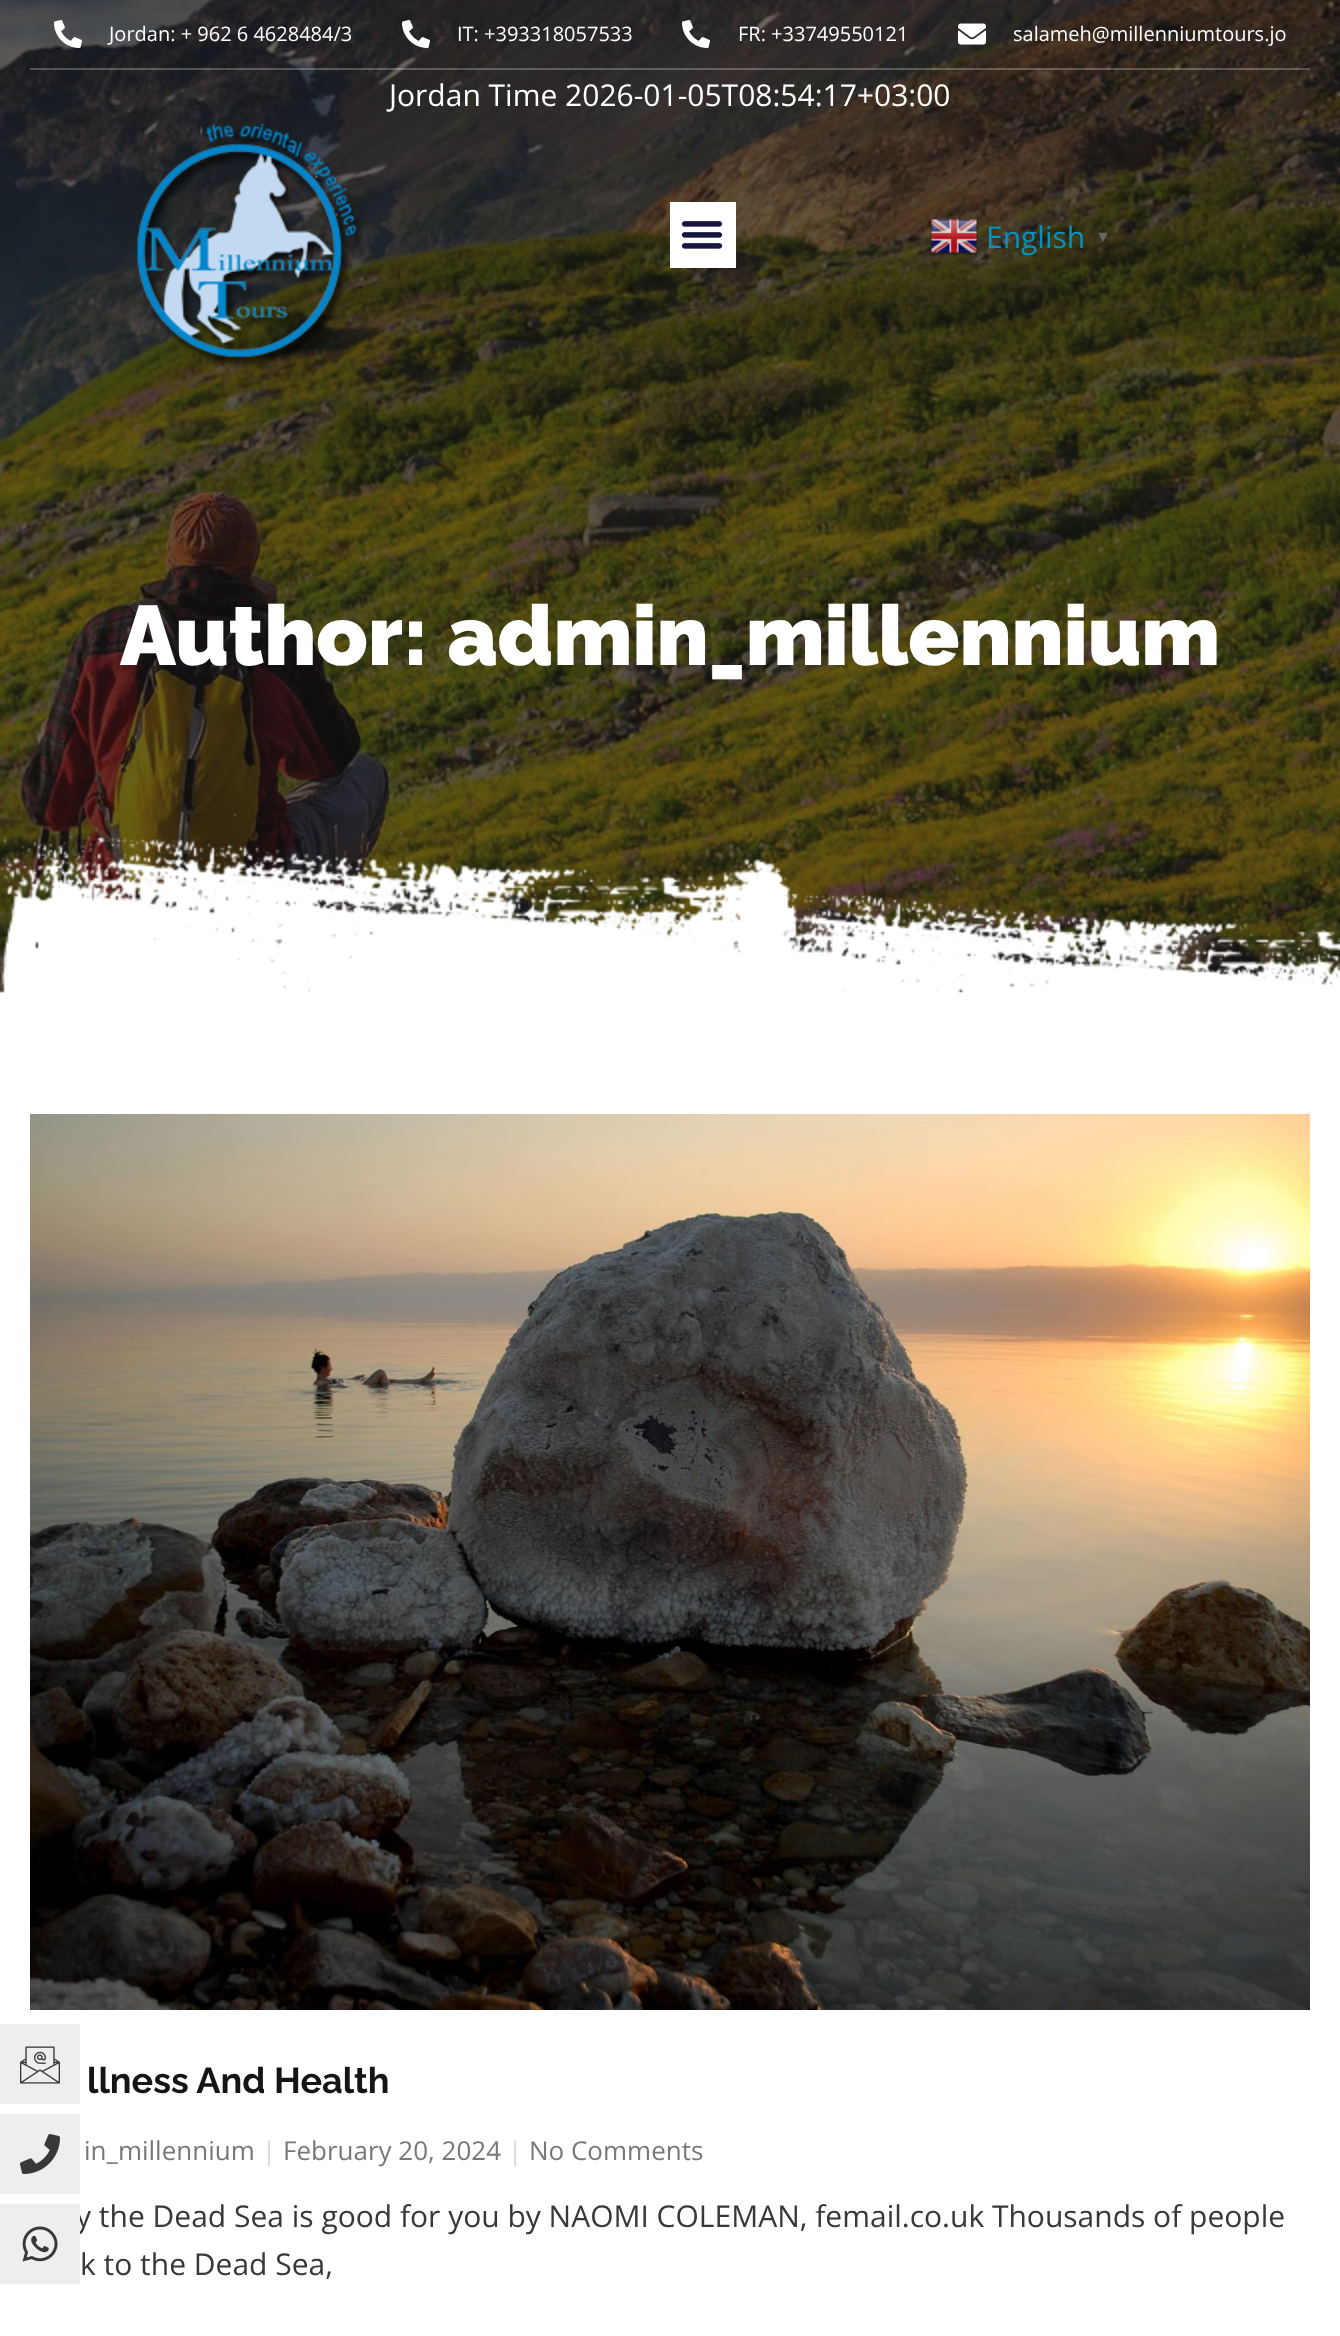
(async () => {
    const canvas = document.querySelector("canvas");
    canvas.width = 1340;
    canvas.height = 2336;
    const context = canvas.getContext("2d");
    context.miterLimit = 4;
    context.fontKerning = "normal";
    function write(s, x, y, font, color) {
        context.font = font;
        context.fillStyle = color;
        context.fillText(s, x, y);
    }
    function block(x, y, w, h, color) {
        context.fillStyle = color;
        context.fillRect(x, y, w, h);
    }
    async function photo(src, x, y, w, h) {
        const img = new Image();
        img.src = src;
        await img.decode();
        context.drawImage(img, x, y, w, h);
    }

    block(0, 0, 1340, 2336, "rgb(255, 255, 255)");
    await photo("media/11.png", 0, 0, 1340, 993);
    block(30, 68, 1280, 2, "rgba(255, 255, 255, 0.25)");
    await photo("media/1.png", 54, 20, 28, 28);
    write("Jordan: + 962 6 4628484/3", 109, 41, "20px Open Sans", "rgb(255, 255, 255)");
    await photo("media/2.png", 402, 20, 28, 28);
    write("IT: +393318057533", 457, 41, "20px Open Sans", "rgb(255, 255, 255)");
    await photo("media/3.png", 682, 20, 28, 28);
    write("FR: +33749550121", 738, 41, "20px Open Sans", "rgb(255, 255, 255)");
    await photo("media/4.png", 958, 23, 28, 22);
    write("salameh@millenniumtours.jo", 1013, 41, "20px Open Sans", "rgb(255, 255, 255)");
    write("Jordan Time 2026-01-05T08:54:17+03:00", 389, 106, "30px Open Sans", "rgb(255, 255, 255)");
    await photo("media/5.png", 137, 123, 226, 245);
    block(670, 202, 66, 66, "rgb(255, 255, 255)");
    await photo("media/6.png", 681, 221, 42, 28);
    await photo("media/7.png", 930, 219, 48, 36);
    write("English", 986, 248, "30px Open Sans", "rgb(7, 145, 190)");
    write("▼", 1095, 242, "bold 16px Liberation Sans", "rgb(102, 102, 102)");
    block(0, 2024, 80, 80, "rgb(238, 238, 238)");
    await photo("media/8.png", 20, 2046, 40, 38);
    block(0, 2114, 80, 80, "rgb(238, 238, 238)");
    await photo("media/9.png", 20, 2134, 40, 40);
    write("y the Dead Sea is good for you by NAOMI COLEMAN, femail.co.uk Thousands of people", 76, 2227, "30px Open Sans", "rgb(56, 56, 56)");
    block(0, 2204, 80, 80, "rgb(238, 238, 238)");
    await photo("media/10.png", 22, 2226, 36, 36);
    write("Author: admin_millennium", 120, 665, "900 84px Raleway", "rgb(255, 255, 255)");
    await photo("media/12.png", 0, 814, 1340, 200);
    await photo("media/13.png", 30, 1114, 1280, 896);
    write("llness And Health", 87, 2093, "bold 36px Raleway", "rgb(21, 21, 21)");
    write("in_millennium", 84, 2160, "26px Open Sans", "rgb(120, 120, 120)");
    write("|", 262, 2160, "26px Open Sans", "rgb(217, 217, 217)");
    write("February 20, 2024", 283, 2160, "26px Open Sans", "rgb(120, 120, 120)");
    write("|", 508, 2160, "26px Open Sans", "rgb(217, 217, 217)");
    write("No Comments", 529, 2160, "26px Open Sans", "rgb(120, 120, 120)");
    write("k to the Dead Sea,", 80, 2275, "30px Open Sans", "rgb(56, 56, 56)");
})();
